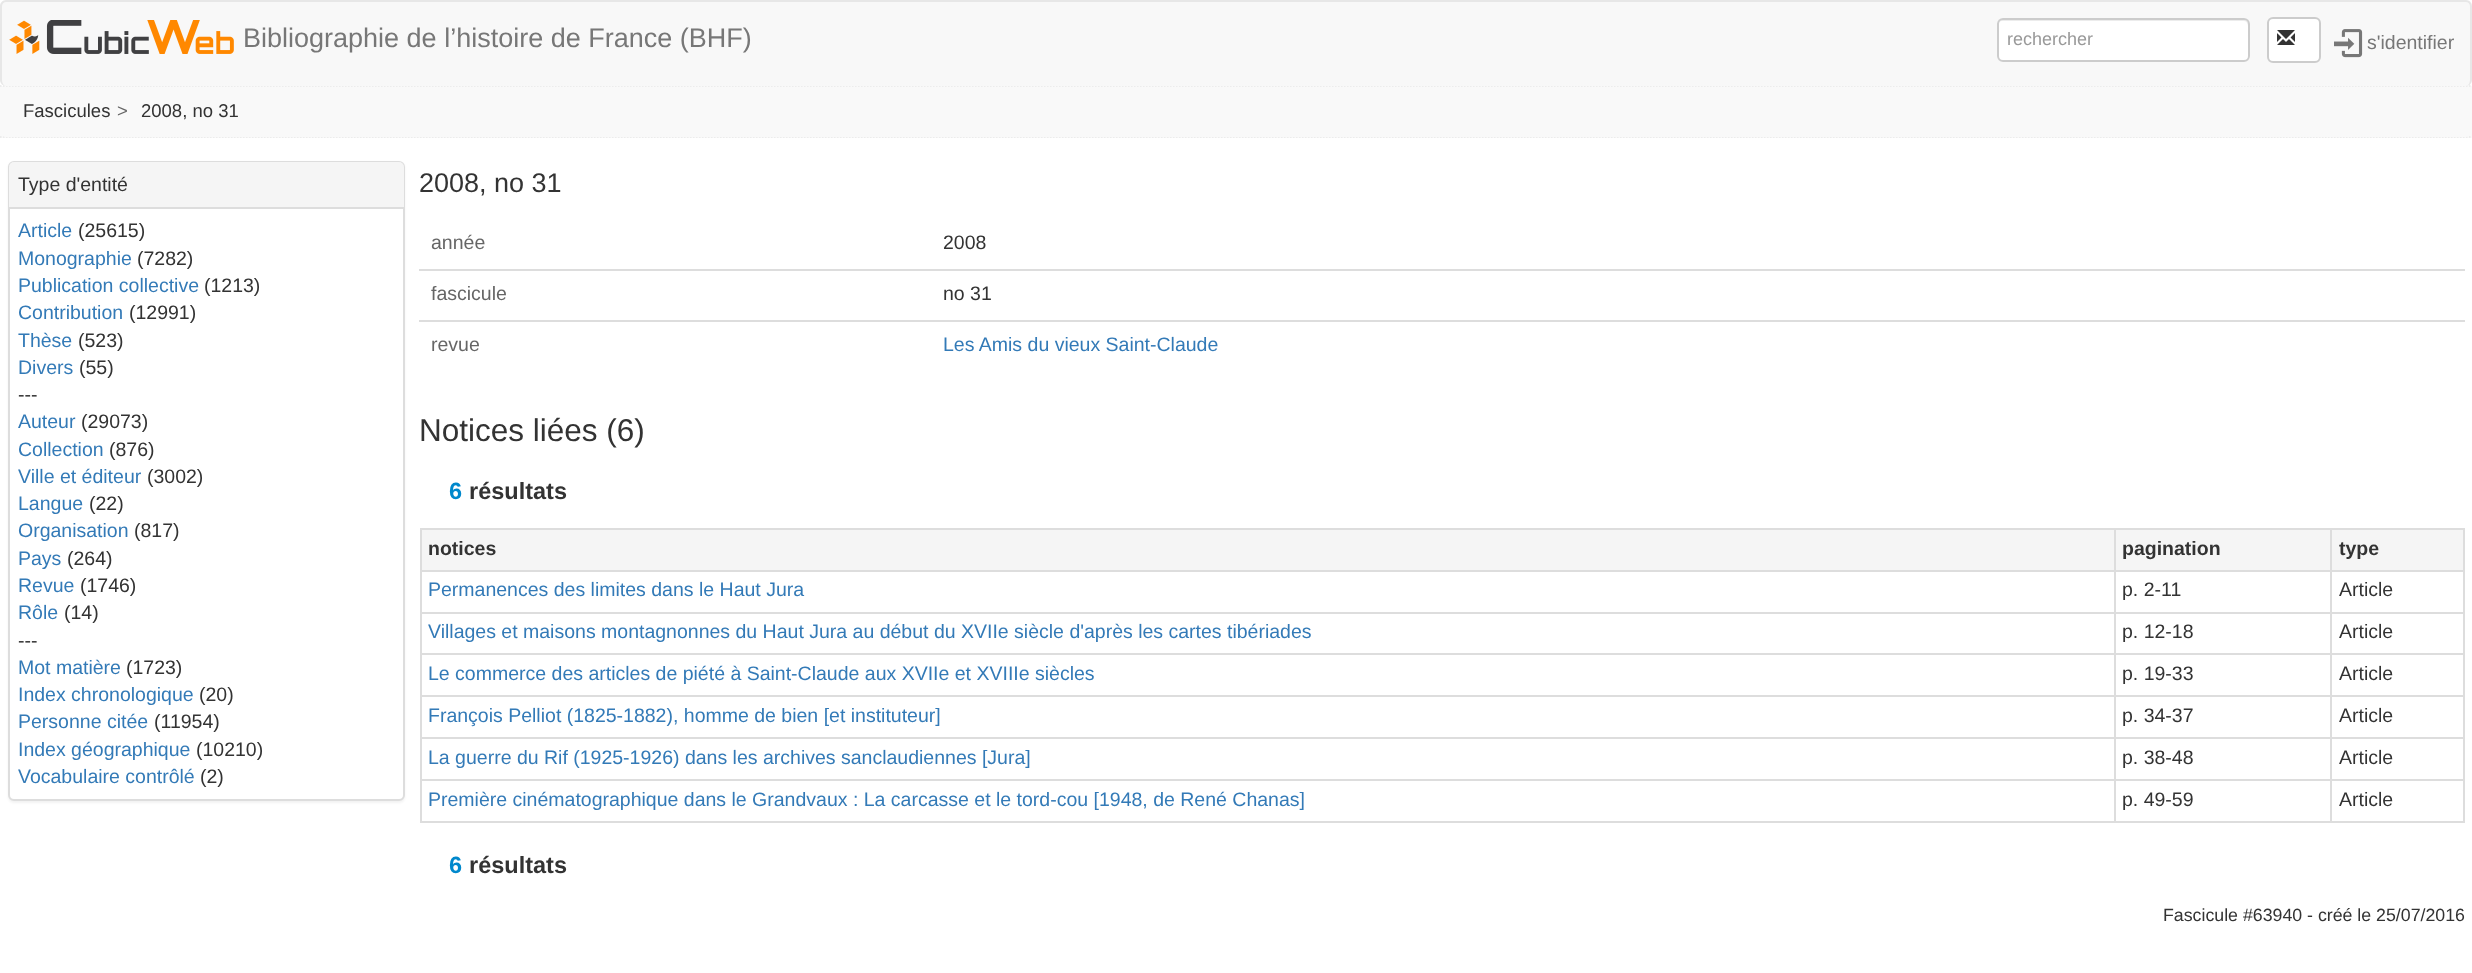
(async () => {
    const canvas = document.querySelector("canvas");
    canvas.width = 2472;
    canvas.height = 973;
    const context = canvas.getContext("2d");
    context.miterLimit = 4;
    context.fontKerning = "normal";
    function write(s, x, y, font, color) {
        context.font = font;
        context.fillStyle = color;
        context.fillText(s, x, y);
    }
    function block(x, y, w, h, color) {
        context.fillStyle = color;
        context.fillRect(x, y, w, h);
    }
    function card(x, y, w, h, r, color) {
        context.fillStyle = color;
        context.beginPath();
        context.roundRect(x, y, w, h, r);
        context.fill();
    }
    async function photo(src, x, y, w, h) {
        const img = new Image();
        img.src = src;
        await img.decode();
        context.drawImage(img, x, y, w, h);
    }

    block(0, 0, 2472, 973, "rgb(255, 255, 255)");
    block(0, 86, 2472, 52, "rgb(249, 249, 249)");
    context.beginPath();
    context.moveTo(0, 86);
    context.lineTo(2472, 86);
    context.strokeStyle = "rgb(231, 231, 231)";
    context.lineWidth = 1.5;
    context.setLineDash([1.5, 1.5]);
    context.stroke();
    card(0, 0, 2472, 86, 6, "rgb(248, 248, 248)");
    context.fillStyle = "rgb(231, 231, 231)";
    context.beginPath();
    context.moveTo(6, 0);
    context.lineTo(2466, 0);
    context.bezierCurveTo(2469, 0, 2472, 3, 2472, 6);
    context.lineTo(2472, 80);
    context.bezierCurveTo(2472, 83, 2469, 86, 2466, 86);
    context.lineTo(6, 86);
    context.bezierCurveTo(3, 86, 0, 83, 0, 80);
    context.lineTo(0, 6);
    context.bezierCurveTo(0, 3, 3, 0, 6, 0);
    context.closePath();
    context.moveTo(6, 2);
    context.lineTo(2466, 2);
    context.bezierCurveTo(2468, 2, 2470, 4, 2470, 6);
    context.lineTo(2470, 80);
    context.bezierCurveTo(2470, 83, 2468, 86, 2466, 86);
    context.lineTo(6, 86);
    context.bezierCurveTo(4, 86, 2, 83, 2, 80);
    context.lineTo(2, 6);
    context.bezierCurveTo(2, 4, 4, 2, 6, 2);
    context.closePath();
    context.fill("evenodd");
    await photo("media/1.png", 9, 20, 225, 34);
    write("Bibliographie de l’histoire de France (BHF)", 243, 47, "27px Liberation Sans", "rgb(119, 119, 119)");
    card(1997, 18, 253, 44, 6, "rgb(255, 255, 255)");
    context.fillStyle = "rgb(236, 236, 236)";
    context.beginPath();
    context.moveTo(2002, 21);
    context.lineTo(2244, 21);
    context.bezierCurveTo(2250, 21, 2248, 34, 2248, 36);
    context.lineTo(2248, 58);
    context.bezierCurveTo(2249, 57, 2249, 56, 2249, 55);
    context.lineTo(2249, 25);
    context.bezierCurveTo(2249, 22, 2247, 20, 2244, 20);
    context.lineTo(2003, 20);
    context.bezierCurveTo(2000, 20, 1998, 22, 1998, 25);
    context.lineTo(1998, 26);
    context.bezierCurveTo(1998, 23, 2000, 21, 2002, 21);
    context.closePath();
    context.fill();
    context.beginPath();
    context.roundRect(1998, 19, 251, 42, 5);
    context.strokeStyle = "rgb(204, 204, 204)";
    context.lineWidth = 2;
    context.setLineDash([]);
    context.stroke();
    write("rechercher", 2007, 45, "18px Liberation Sans", "rgb(153, 153, 153)");
    context.fillStyle = "rgb(255, 255, 255)";
    context.beginPath();
    context.roundRect(2268, 18, 52, 44, 5);
    context.fill();
    context.stroke();
    await photo("media/2.png", 2277, 30, 18, 15);
    await photo("media/3.png", 2334, 29, 29, 29);
    write("s'identifier", 2367, 49, "19.5px Liberation Sans", "rgb(119, 119, 119)");
    context.beginPath();
    context.moveTo(0, 137);
    context.lineTo(2472, 137);
    context.strokeStyle = "rgb(231, 231, 231)";
    context.lineWidth = 1.5;
    context.setLineDash([1.5, 1.5]);
    context.stroke();
    card(0, 87, 2472, 50, 6, "rgb(249, 249, 249)");
    write("Fascicules", 23, 117, "18.5px Liberation Sans", "rgb(51, 51, 51)");
    write(">", 117, 117, "18.5px Liberation Sans", "rgb(102, 102, 102)");
    write("2008, no 31", 141, 117, "18.5px Liberation Sans", "rgb(51, 51, 51)");
    context.fillStyle = "rgba(0, 0, 0, 0.05)";
    context.filter = "blur(1px)";
    context.beginPath();
    context.roundRect(8, 162, 397, 641, 6);
    context.fill();
    context.filter = "none";
    context.fillStyle = "rgb(255, 255, 255)";
    context.beginPath();
    context.roundRect(9, 162, 395, 638, 5);
    context.fill();
    context.strokeStyle = "rgb(221, 221, 221)";
    context.lineWidth = 2;
    context.setLineDash([]);
    context.stroke();
    context.fillStyle = "rgb(245, 245, 245)";
    context.beginPath();
    context.roundRect(9, 162, 395, 47, [5, 5, 0, 0]);
    context.fill();
    block(9, 207, 395, 2, "rgb(221, 221, 221)");
    write("Type d'entité", 18, 191, "19.5px Liberation Sans", "rgb(51, 51, 51)");
    write("Article", 18, 237, "19.5px Liberation Sans", "rgb(51, 122, 183)");
    write("(25615)", 78, 237, "19.5px Liberation Sans", "rgb(51, 51, 51)");
    write("Monographie", 18, 265, "19.5px Liberation Sans", "rgb(51, 122, 183)");
    write("(7282)", 137, 265, "19.5px Liberation Sans", "rgb(51, 51, 51)");
    write("Publication collective", 18, 292, "19.5px Liberation Sans", "rgb(51, 122, 183)");
    write("(1213)", 204, 292, "19.5px Liberation Sans", "rgb(51, 51, 51)");
    write("Contribution", 18, 319, "19.5px Liberation Sans", "rgb(51, 122, 183)");
    write("(12991)", 129, 319, "19.5px Liberation Sans", "rgb(51, 51, 51)");
    write("Thèse", 18, 347, "19.5px Liberation Sans", "rgb(51, 122, 183)");
    write("(523)", 78, 347, "19.5px Liberation Sans", "rgb(51, 51, 51)");
    write("Divers", 18, 374, "19.5px Liberation Sans", "rgb(51, 122, 183)");
    write("(55)", 79, 374, "19.5px Liberation Sans", "rgb(51, 51, 51)");
    write("---", 18, 401, "19.5px Liberation Sans", "rgb(51, 51, 51)");
    write("Auteur", 18, 428, "19.5px Liberation Sans", "rgb(51, 122, 183)");
    write("(29073)", 81, 428, "19.5px Liberation Sans", "rgb(51, 51, 51)");
    write("Collection", 18, 456, "19.5px Liberation Sans", "rgb(51, 122, 183)");
    write("(876)", 109, 456, "19.5px Liberation Sans", "rgb(51, 51, 51)");
    write("Ville et éditeur", 18, 483, "19.5px Liberation Sans", "rgb(51, 122, 183)");
    write("(3002)", 147, 483, "19.5px Liberation Sans", "rgb(51, 51, 51)");
    write("Langue", 18, 510, "19.5px Liberation Sans", "rgb(51, 122, 183)");
    write("(22)", 89, 510, "19.5px Liberation Sans", "rgb(51, 51, 51)");
    write("Organisation", 18, 537, "19.5px Liberation Sans", "rgb(51, 122, 183)");
    write("(817)", 134, 537, "19.5px Liberation Sans", "rgb(51, 51, 51)");
    write("Pays", 18, 565, "19.5px Liberation Sans", "rgb(51, 122, 183)");
    write("(264)", 67, 565, "19.5px Liberation Sans", "rgb(51, 51, 51)");
    write("Revue", 18, 592, "19.5px Liberation Sans", "rgb(51, 122, 183)");
    write("(1746)", 80, 592, "19.5px Liberation Sans", "rgb(51, 51, 51)");
    write("Rôle", 18, 619, "19.5px Liberation Sans", "rgb(51, 122, 183)");
    write("(14)", 64, 619, "19.5px Liberation Sans", "rgb(51, 51, 51)");
    write("---", 18, 647, "19.5px Liberation Sans", "rgb(51, 51, 51)");
    write("Mot matière", 18, 674, "19.5px Liberation Sans", "rgb(51, 122, 183)");
    write("(1723)", 126, 674, "19.5px Liberation Sans", "rgb(51, 51, 51)");
    write("Index chronologique", 18, 701, "19.5px Liberation Sans", "rgb(51, 122, 183)");
    write("(20)", 199, 701, "19.5px Liberation Sans", "rgb(51, 51, 51)");
    write("Personne citée", 18, 728, "19.5px Liberation Sans", "rgb(51, 122, 183)");
    write("(11954)", 154, 728, "19.5px Liberation Sans", "rgb(51, 51, 51)");
    write("Index géographique", 18, 756, "19.5px Liberation Sans", "rgb(51, 122, 183)");
    write("(10210)", 196, 756, "19.5px Liberation Sans", "rgb(51, 51, 51)");
    write("Vocabulaire contrôlé", 18, 783, "19.5px Liberation Sans", "rgb(51, 122, 183)");
    write("(2)", 200, 783, "19.5px Liberation Sans", "rgb(51, 51, 51)");
    write("2008, no 31", 419, 192, "27px Liberation Sans", "rgb(51, 51, 51)");
    write("année", 431, 249, "19.5px Liberation Sans", "rgb(102, 102, 102)");
    write("2008", 943, 249, "19.5px Liberation Sans", "rgb(51, 51, 51)");
    write("fascicule", 431, 300, "19.5px Liberation Sans", "rgb(102, 102, 102)");
    block(419, 269, 2046, 2, "rgb(221, 221, 221)");
    write("no 31", 943, 300, "19.5px Liberation Sans", "rgb(51, 51, 51)");
    write("revue", 431, 351, "19.5px Liberation Sans", "rgb(102, 102, 102)");
    block(419, 320, 2046, 2, "rgb(221, 221, 221)");
    write("Les Amis du vieux Saint-Claude", 943, 351, "19.5px Liberation Sans", "rgb(51, 122, 183)");
    write("Notices liées (6)", 419, 441, "31.5px Liberation Sans", "rgb(51, 51, 51)");
    write("6", 449, 499, "bold 23.5px Liberation Sans", "rgb(0, 136, 204)");
    write("résultats", 469, 499, "bold 23.5px Liberation Sans", "rgb(51, 51, 51)");
    block(420, 528, 2045, 2, "rgb(221, 221, 221)");
    block(2463, 528, 2, 294, "rgb(221, 221, 221)");
    block(420, 821, 2045, 2, "rgb(221, 221, 221)");
    block(420, 528, 2, 294, "rgb(221, 221, 221)");
    block(422, 530, 1692, 40, "rgb(245, 245, 245)");
    write("notices", 428, 555, "bold 19.5px Liberation Sans", "rgb(51, 51, 51)");
    block(2116, 530, 214, 40, "rgb(245, 245, 245)");
    block(2330, 570, 135, 2, "rgb(221, 221, 221)");
    block(2330, 612, 135, 2, "rgb(221, 221, 221)");
    block(2330, 653, 135, 2, "rgb(221, 221, 221)");
    block(2330, 695, 135, 2, "rgb(221, 221, 221)");
    block(2330, 737, 135, 2, "rgb(221, 221, 221)");
    block(2330, 779, 135, 2, "rgb(221, 221, 221)");
    block(2330, 779, 2, 43, "rgb(221, 221, 221)");
    block(2114, 779, 217, 2, "rgb(221, 221, 221)");
    block(2330, 737, 2, 43, "rgb(221, 221, 221)");
    block(2114, 737, 217, 2, "rgb(221, 221, 221)");
    block(2330, 695, 2, 43, "rgb(221, 221, 221)");
    block(2114, 695, 217, 2, "rgb(221, 221, 221)");
    block(2330, 653, 2, 43, "rgb(221, 221, 221)");
    block(2114, 653, 217, 2, "rgb(221, 221, 221)");
    block(2330, 612, 2, 42, "rgb(221, 221, 221)");
    block(2114, 612, 217, 2, "rgb(221, 221, 221)");
    block(2330, 570, 2, 44, "rgb(221, 221, 221)");
    block(2114, 570, 217, 2, "rgb(221, 221, 221)");
    block(2114, 779, 2, 43, "rgb(221, 221, 221)");
    block(420, 779, 1695, 2, "rgb(221, 221, 221)");
    block(2114, 737, 2, 43, "rgb(221, 221, 221)");
    block(420, 737, 1695, 2, "rgb(221, 221, 221)");
    block(2114, 695, 2, 43, "rgb(221, 221, 221)");
    block(420, 695, 1695, 2, "rgb(221, 221, 221)");
    block(2114, 653, 2, 43, "rgb(221, 221, 221)");
    block(420, 653, 1695, 2, "rgb(221, 221, 221)");
    block(2114, 612, 2, 42, "rgb(221, 221, 221)");
    block(420, 612, 1695, 2, "rgb(221, 221, 221)");
    block(2114, 570, 2, 44, "rgb(221, 221, 221)");
    block(420, 570, 1695, 2, "rgb(221, 221, 221)");
    block(2114, 528, 2, 44, "rgb(221, 221, 221)");
    write("pagination", 2122, 555, "bold 19.5px Liberation Sans", "rgb(51, 51, 51)");
    block(2332, 530, 131, 40, "rgb(245, 245, 245)");
    block(2330, 528, 2, 44, "rgb(221, 221, 221)");
    write("type", 2339, 555, "bold 19.5px Liberation Sans", "rgb(51, 51, 51)");
    write("Permanences des limites dans le Haut Jura", 428, 596, "19.5px Liberation Sans", "rgb(51, 122, 183)");
    write("p. 2-11", 2122, 596, "19.5px Liberation Sans", "rgb(51, 51, 51)");
    write("Article", 2339, 596, "19.5px Liberation Sans", "rgb(51, 51, 51)");
    write("Villages et maisons montagnonnes du Haut Jura au début du XVIIe siècle d'après les cartes tibériades", 428, 638, "19.5px Liberation Sans", "rgb(51, 122, 183)");
    write("p. 12-18", 2122, 638, "19.5px Liberation Sans", "rgb(51, 51, 51)");
    write("Article", 2339, 638, "19.5px Liberation Sans", "rgb(51, 51, 51)");
    write("Le commerce des articles de piété à Saint-Claude aux XVIIe et XVIIIe siècles", 428, 680, "19.5px Liberation Sans", "rgb(51, 122, 183)");
    write("p. 19-33", 2122, 680, "19.5px Liberation Sans", "rgb(51, 51, 51)");
    write("Article", 2339, 680, "19.5px Liberation Sans", "rgb(51, 51, 51)");
    write("François Pelliot (1825-1882), homme de bien [et instituteur]", 428, 722, "19.5px Liberation Sans", "rgb(51, 122, 183)");
    write("p. 34-37", 2122, 722, "19.5px Liberation Sans", "rgb(51, 51, 51)");
    write("Article", 2339, 722, "19.5px Liberation Sans", "rgb(51, 51, 51)");
    write("La guerre du Rif (1925-1926) dans les archives sanclaudiennes [Jura]", 428, 764, "19.5px Liberation Sans", "rgb(51, 122, 183)");
    write("p. 38-48", 2122, 764, "19.5px Liberation Sans", "rgb(51, 51, 51)");
    write("Article", 2339, 764, "19.5px Liberation Sans", "rgb(51, 51, 51)");
    write("Première cinématographique dans le Grandvaux : La carcasse et le tord-cou [1948, de René Chanas]", 428, 806, "19.5px Liberation Sans", "rgb(51, 122, 183)");
    write("p. 49-59", 2122, 806, "19.5px Liberation Sans", "rgb(51, 51, 51)");
    write("Article", 2339, 806, "19.5px Liberation Sans", "rgb(51, 51, 51)");
    write("6", 449, 873, "bold 23.5px Liberation Sans", "rgb(0, 136, 204)");
    write("résultats", 469, 873, "bold 23.5px Liberation Sans", "rgb(51, 51, 51)");
    write("Fascicule #63940 - créé le 25/07/2016", 2163, 921, "17.75px Liberation Sans", "rgb(51, 51, 51)");
})();
